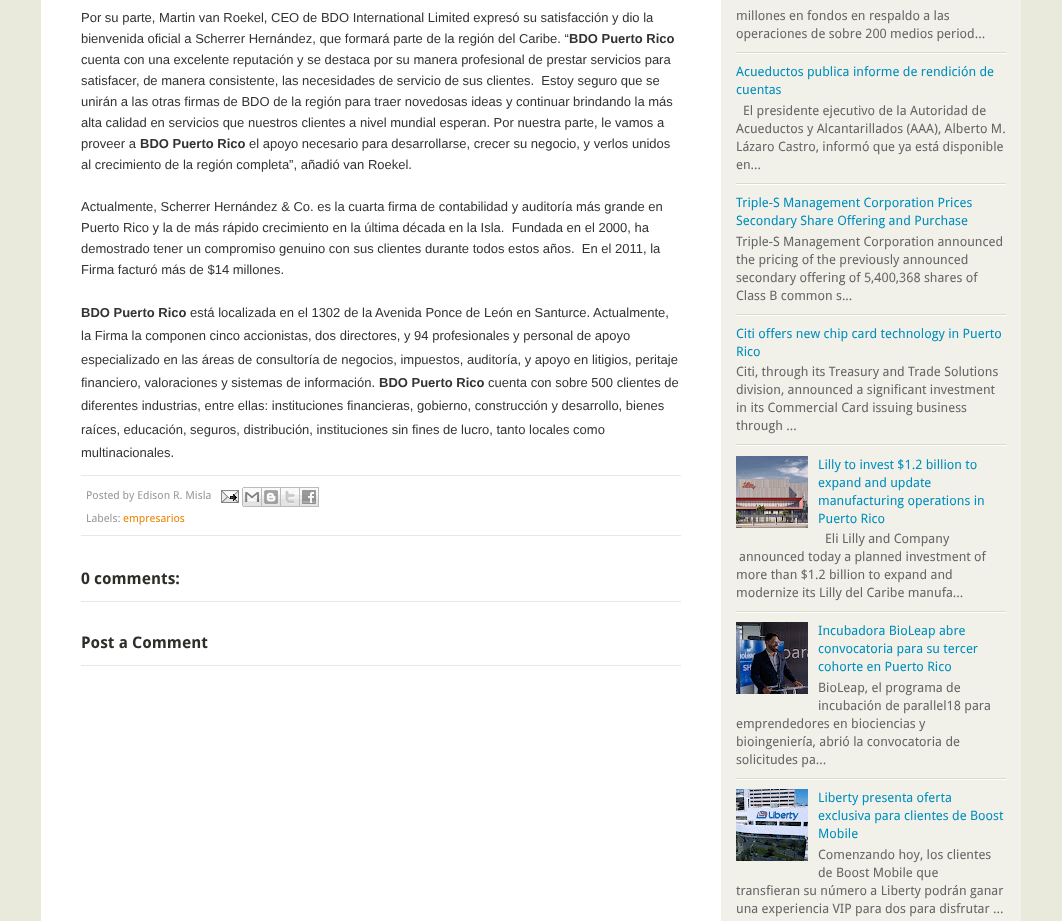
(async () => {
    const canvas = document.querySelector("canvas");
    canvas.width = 1062;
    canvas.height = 921;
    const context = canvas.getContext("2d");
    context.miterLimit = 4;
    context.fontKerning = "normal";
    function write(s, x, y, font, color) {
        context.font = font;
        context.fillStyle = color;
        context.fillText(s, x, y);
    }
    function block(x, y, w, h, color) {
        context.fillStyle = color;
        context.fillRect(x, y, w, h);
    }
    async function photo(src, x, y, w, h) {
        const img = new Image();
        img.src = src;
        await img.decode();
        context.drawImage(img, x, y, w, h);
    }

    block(0, 0, 1062, 921, "rgb(233, 233, 220)");
    block(41, 0, 680, 921, "rgb(255, 255, 255)");
    block(81, 535, 600, 1, "rgb(233, 233, 221)");
    write("Por su parte, Martin van Roekel, CEO de BDO International Limited expresó su satisfacción y dio la", 81, 22, "13px Liberation Sans", "rgb(51, 51, 51)");
    write("bienvenida oficial a Scherrer Hernández, que formará parte de la región del Caribe. “", 81, 43, "13px Liberation Sans", "rgb(51, 51, 51)");
    write("BDO Puerto Rico", 569, 43, "bold 13px Liberation Sans", "rgb(51, 51, 51)");
    write("cuenta con una excelente reputación y se destaca por su manera profesional de prestar servicios para", 81, 64, "13px Liberation Sans", "rgb(51, 51, 51)");
    write("satisfacer, de manera consistente, las necesidades de servicio de sus clientes.  Estoy seguro que se", 81, 85, "13px Liberation Sans", "rgb(51, 51, 51)");
    write("unirán a las otras firmas de BDO de la región para traer novedosas ideas y continuar brindando la más", 81, 106, "13px Liberation Sans", "rgb(51, 51, 51)");
    write("alta calidad en servicios que nuestros clientes a nivel mundial esperan. Por nuestra parte, le vamos a", 81, 127, "13px Liberation Sans", "rgb(51, 51, 51)");
    write("proveer a", 81, 148, "13px Liberation Sans", "rgb(51, 51, 51)");
    write("BDO Puerto Rico", 140, 148, "bold 13px Liberation Sans", "rgb(51, 51, 51)");
    write("el apoyo necesario para desarrollarse, crecer su negocio, y verlos unidos", 249, 148, "13px Liberation Sans", "rgb(51, 51, 51)");
    write("al crecimiento de la región completa”, añadió van Roekel.", 81, 169, "13px Liberation Sans", "rgb(51, 51, 51)");
    write("Actualmente, Scherrer Hernández & Co. es la cuarta firma de contabilidad y auditoría más grande en", 81, 211, "13px Liberation Sans", "rgb(51, 51, 51)");
    write("Puerto Rico y la de más rápido crecimiento en la última década en la Isla.  Fundada en el 2000, ha", 81, 232, "13px Liberation Sans", "rgb(51, 51, 51)");
    write("demostrado tener un compromiso genuino con sus clientes durante todos estos años.  En el 2011, la", 81, 253, "13px Liberation Sans", "rgb(51, 51, 51)");
    write("Firma facturó más de $14 millones.", 81, 274, "13px Liberation Sans", "rgb(51, 51, 51)");
    write("BDO Puerto Rico", 81, 317, "bold 13px Liberation Sans", "rgb(51, 51, 51)");
    write("está localizada en el 1302 de la Avenida Ponce de León en Santurce. Actualmente,", 190, 317, "13px Liberation Sans", "rgb(51, 51, 51)");
    write("la Firma la componen cinco accionistas, dos directores, y 94 profesionales y personal de apoyo", 81, 340, "13px Liberation Sans", "rgb(51, 51, 51)");
    write("especializado en las áreas de consultoría de negocios, impuestos, auditoría, y apoyo en litigios, peritaje", 81, 364, "13px Liberation Sans", "rgb(51, 51, 51)");
    write("financiero, valoraciones y sistemas de información.", 81, 387, "13px Liberation Sans", "rgb(51, 51, 51)");
    write("BDO Puerto Rico", 379, 387, "bold 13px Liberation Sans", "rgb(51, 51, 51)");
    write("cuenta con sobre 500 clientes de", 488, 387, "13px Liberation Sans", "rgb(51, 51, 51)");
    write("diferentes industrias, entre ellas: instituciones financieras, gobierno, construcción y desarrollo, bienes", 81, 410, "13px Liberation Sans", "rgb(51, 51, 51)");
    write("raíces, educación, seguros, distribución, instituciones sin fines de lucro, tanto locales como", 81, 434, "13px Liberation Sans", "rgb(51, 51, 51)");
    write("multinacionales.", 81, 457, "13px Liberation Sans", "rgb(51, 51, 51)");
    block(81, 475, 600, 1, "rgb(233, 233, 221)");
    write("Posted by Edison R. Misla", 86, 499, "11px Droid Sans", "rgb(153, 153, 153)");
    await photo("media/1.png", 221, 490, 18, 13);
    await photo("media/2.png", 242, 487, 20, 20);
    await photo("media/3.png", 262, 487, 19, 20);
    await photo("media/4.png", 281, 487, 19, 20);
    await photo("media/5.png", 300, 487, 19, 20);
    write("Labels:", 86, 522, "11px Droid Sans", "rgb(153, 153, 153)");
    write("empresarios", 123, 522, "11px Droid Sans", "rgb(236, 133, 0)");
    block(81, 601, 600, 1, "rgb(231, 231, 231)");
    write("0 comments:", 81, 584, "bold 16px Droid Sans", "rgb(46, 46, 41)");
    block(81, 665, 600, 1, "rgb(231, 231, 231)");
    write("Post a Comment", 81, 648, "bold 16px Droid Sans", "rgb(46, 46, 41)");
    block(721, 0, 300, 921, "rgb(241, 241, 234)");
    block(736, 52, 270, 1, "rgb(218, 218, 205)");
    write("millones en fondos en respaldo a las", 736, 20, "13px Droid Sans", "rgb(102, 102, 102)");
    write("operaciones de sobre 200 medios period...", 736, 38, "13px Droid Sans", "rgb(102, 102, 102)");
    block(736, 53, 270, 1, "rgb(255, 255, 255)");
    block(736, 183, 270, 1, "rgb(218, 218, 205)");
    write("Acueductos publica informe de rendición de", 736, 76, "13px Droid Sans", "rgb(0, 142, 188)");
    write("cuentas", 736, 94, "13px Droid Sans", "rgb(0, 142, 188)");
    write("El presidente ejecutivo de la Autoridad de", 743, 115, "13px Droid Sans", "rgb(102, 102, 102)");
    write("Acueductos y Alcantarillados (AAA), Alberto M.", 736, 133, "13px Droid Sans", "rgb(102, 102, 102)");
    write("Lázaro Castro, informó que ya está disponible", 736, 151, "13px Droid Sans", "rgb(102, 102, 102)");
    write("en...", 736, 169, "13px Droid Sans", "rgb(102, 102, 102)");
    block(736, 184, 270, 1, "rgb(255, 255, 255)");
    block(736, 314, 270, 1, "rgb(218, 218, 205)");
    write("Triple-S Management Corporation Prices", 736, 207, "13px Droid Sans", "rgb(0, 142, 188)");
    write("Secondary Share Offering and Purchase", 736, 225, "13px Droid Sans", "rgb(0, 142, 188)");
    write("Triple-S Management Corporation announced", 736, 246, "13px Droid Sans", "rgb(102, 102, 102)");
    write("the pricing of the previously announced", 736, 264, "13px Droid Sans", "rgb(102, 102, 102)");
    write("secondary offering of 5,400,368 shares of", 736, 282, "13px Droid Sans", "rgb(102, 102, 102)");
    write("Class B common s...", 736, 300, "13px Droid Sans", "rgb(102, 102, 102)");
    block(736, 315, 270, 1, "rgb(255, 255, 255)");
    block(736, 444, 270, 1, "rgb(218, 218, 205)");
    write("Citi offers new chip card technology in Puerto", 736, 338, "13px Droid Sans", "rgb(0, 142, 188)");
    write("Rico", 736, 356, "13px Droid Sans", "rgb(0, 142, 188)");
    write("Citi, through its Treasury and Trade Solutions", 736, 376, "13px Droid Sans", "rgb(102, 102, 102)");
    write("division, announced a significant investment", 736, 394, "13px Droid Sans", "rgb(102, 102, 102)");
    write("in its Commercial Card issuing business", 736, 412, "13px Droid Sans", "rgb(102, 102, 102)");
    write("through ...", 736, 430, "13px Droid Sans", "rgb(102, 102, 102)");
    block(736, 445, 270, 1, "rgb(255, 255, 255)");
    block(736, 611, 270, 1, "rgb(218, 218, 205)");
    await photo("media/6.png", 736, 456, 72, 72);
    write("Lilly to invest $1.2 billion to", 818, 469, "13px Droid Sans", "rgb(0, 142, 188)");
    write("expand and update", 818, 487, "13px Droid Sans", "rgb(0, 142, 188)");
    write("manufacturing operations in", 818, 505, "13px Droid Sans", "rgb(0, 142, 188)");
    write("Puerto Rico", 818, 523, "13px Droid Sans", "rgb(0, 142, 188)");
    write("Eli Lilly and Company", 825, 543, "13px Droid Sans", "rgb(102, 102, 102)");
    write("announced today a planned investment of", 739, 561, "13px Droid Sans", "rgb(102, 102, 102)");
    write("more than $1.2 billion to expand and", 736, 579, "13px Droid Sans", "rgb(102, 102, 102)");
    write("modernize its Lilly del Caribe manufa...", 736, 597, "13px Droid Sans", "rgb(102, 102, 102)");
    block(736, 612, 270, 1, "rgb(255, 255, 255)");
    block(736, 778, 270, 1, "rgb(218, 218, 205)");
    await photo("media/7.png", 736, 622, 72, 72);
    write("Incubadora BioLeap abre", 818, 635, "13px Droid Sans", "rgb(0, 142, 188)");
    write("convocatoria para su tercer", 818, 653, "13px Droid Sans", "rgb(0, 142, 188)");
    write("cohorte en Puerto Rico", 818, 671, "13px Droid Sans", "rgb(0, 142, 188)");
    write("BioLeap, el programa de", 818, 692, "13px Droid Sans", "rgb(102, 102, 102)");
    write("incubación de parallel18 para", 818, 710, "13px Droid Sans", "rgb(102, 102, 102)");
    write("emprendedores en biociencias y", 736, 728, "13px Droid Sans", "rgb(102, 102, 102)");
    write("bioingeniería, abrió la convocatoria de", 736, 746, "13px Droid Sans", "rgb(102, 102, 102)");
    write("solicitudes pa...", 736, 764, "13px Droid Sans", "rgb(102, 102, 102)");
    block(736, 779, 270, 1, "rgb(255, 255, 255)");
    await photo("media/8.png", 736, 789, 72, 72);
    write("Liberty presenta oferta", 818, 802, "13px Droid Sans", "rgb(0, 142, 188)");
    write("exclusiva para clientes de Boost", 818, 820, "13px Droid Sans", "rgb(0, 142, 188)");
    write("Mobile", 818, 838, "13px Droid Sans", "rgb(0, 142, 188)");
    write("Comenzando hoy, los clientes", 818, 859, "13px Droid Sans", "rgb(102, 102, 102)");
    write("de Boost Mobile que", 818, 877, "13px Droid Sans", "rgb(102, 102, 102)");
    write("transfieran su número a Liberty podrán ganar", 736, 895, "13px Droid Sans", "rgb(102, 102, 102)");
    write("una experiencia VIP para dos para disfrutar ...", 736, 913, "13px Droid Sans", "rgb(102, 102, 102)");
})();
